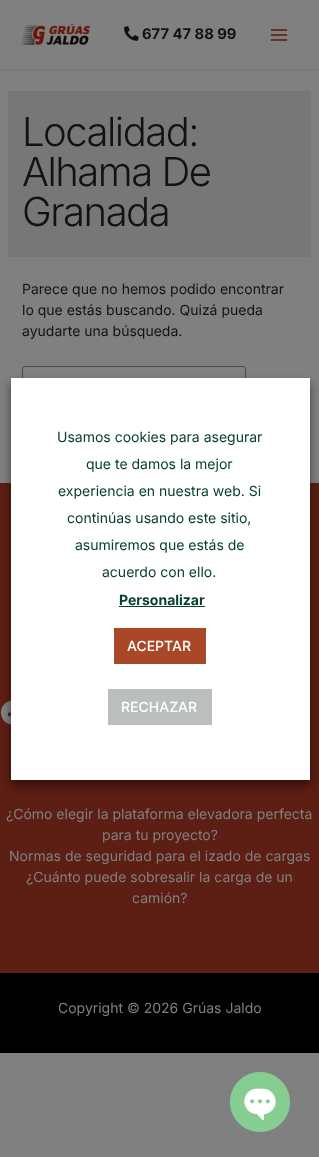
(async () => {
    const canvas = document.querySelector("canvas");
    canvas.width = 319;
    canvas.height = 1157;
    const context = canvas.getContext("2d");
    context.miterLimit = 4;
    context.fontKerning = "normal";
    function write(s, x, y, font, color) {
        context.font = font;
        context.fillStyle = color;
        context.fillText(s, x, y);
    }
    function block(x, y, w, h, color) {
        context.fillStyle = color;
        context.fillRect(x, y, w, h);
    }
    async function photo(src, x, y, w, h) {
        const img = new Image();
        img.src = src;
        await img.decode();
        context.drawImage(img, x, y, w, h);
    }

    block(0, 0, 319, 1157, "rgb(128, 128, 128)");
    block(0, 69, 319, 1, "rgb(117, 117, 117)");
    await photo("media/1.png", 20, 24, 70, 21);
    await photo("media/2.png", 124, 26, 15, 15);
    write("677 47 88 99", 142, 39, "bold 14.75px Inter", "rgb(18, 18, 18)");
    await photo("media/3.png", 270, 29, 18, 12);
    block(8, 91, 303, 166, "rgb(119, 119, 119)");
    context.letterSpacing = "-1.5px";
    write("Localidad:", 22, 146, "300 40px Inter", "rgb(18, 18, 18)");
    write("Alhama De", 22, 186, "300 40px Inter", "rgb(18, 18, 18)");
    write("Granada", 22, 226, "300 40px Inter", "rgb(18, 18, 18)");
    context.letterSpacing = "0px";
    write("Parece que no hemos podido encontrar", 22, 294, "14px Inter", "rgb(18, 18, 18)");
    write("lo que estás buscando. Quizá pueda", 22, 315, "14px Inter", "rgb(18, 18, 18)");
    write("ayudarte una búsqueda.", 22, 336, "14px Inter", "rgb(18, 18, 18)");
    context.beginPath();
    context.roundRect(22.5, 366.5, 223, 40, 2.5);
    context.strokeStyle = "rgb(75, 75, 75)";
    context.stroke();
    block(0, 483, 319, 490, "rgb(93, 30, 19)");
    await photo("media/4.png", 0, 700, 11, 25);
    write("¿Cómo elegir la plataforma elevadora perfecta", 6, 819, "14px Inter", "rgb(128, 128, 128)");
    write("para tu proyecto?", 102, 840, "14px Inter", "rgb(128, 128, 128)");
    write("Normas de seguridad para el izado de cargas", 9, 861, "14px Inter", "rgb(128, 128, 128)");
    write("¿Cuánto puede sobresalir la carga de un", 26, 882, "14px Inter", "rgb(128, 128, 128)");
    write("camión?", 132, 903, "14px Inter", "rgb(128, 128, 128)");
    block(0, 973, 319, 80, "rgb(0, 0, 0)");
    write("Copyright © 2026 Grúas Jaldo", 58, 1013, "14px Inter", "rgb(128, 128, 128)");
    context.fillStyle = "rgba(0, 0, 0, 0.5)";
    context.filter = "blur(5px)";
    context.beginPath();
    context.rect(11, 383, 299, 402);
    context.fill();
    context.filter = "none";
    block(11, 378, 299, 402, "rgb(255, 255, 255)");
    write("Usamos cookies para asegurar", 57, 442, "14px Inter", "rgb(8, 64, 44)");
    write("que te damos la mejor", 86, 469, "14px Inter", "rgb(8, 64, 44)");
    write("experiencia en nuestra web. Si", 58, 496, "14px Inter", "rgb(8, 64, 44)");
    write("continúas usando este sitio,", 67, 523, "14px Inter", "rgb(8, 64, 44)");
    write("asumiremos que estás de", 75, 550, "14px Inter", "rgb(8, 64, 44)");
    write("acuerdo con ello.", 102, 577, "14px Inter", "rgb(8, 64, 44)");
    write("Personalizar", 119, 605, "bold 14px Inter", "rgb(8, 64, 44)");
    block(119, 606, 86, 1, "rgb(8, 64, 44)");
    block(114, 628, 92, 36, "rgb(171, 71, 41)");
    write("ACEPTAR", 127, 651, "500 14px Inter", "rgb(255, 255, 255)");
    block(108, 689, 104, 36, "rgb(186, 191, 190)");
    write("RECHAZAR", 121, 712, "500 14px Inter", "rgb(255, 255, 255)");
    await photo("media/5.png", 230, 1072, 60, 60);
})();
